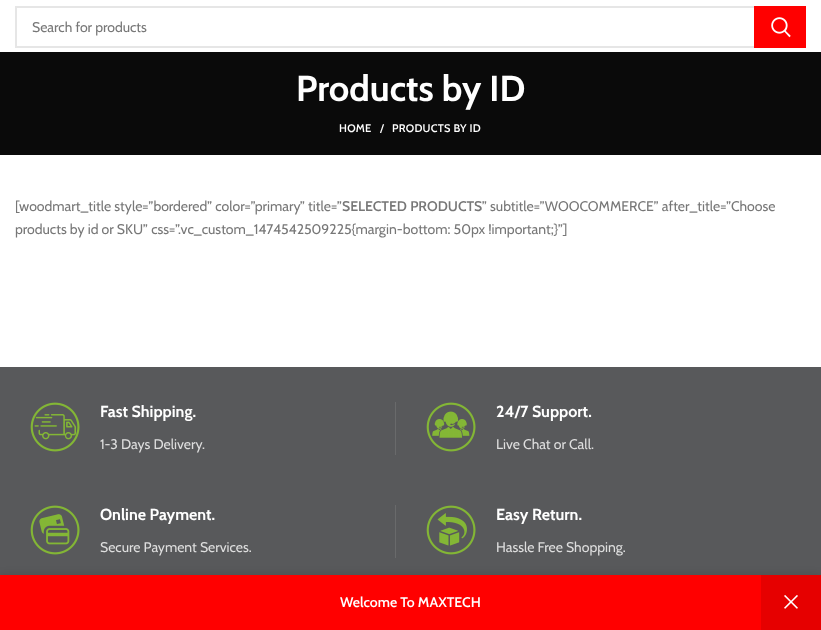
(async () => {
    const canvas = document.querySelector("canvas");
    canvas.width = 821;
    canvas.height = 630;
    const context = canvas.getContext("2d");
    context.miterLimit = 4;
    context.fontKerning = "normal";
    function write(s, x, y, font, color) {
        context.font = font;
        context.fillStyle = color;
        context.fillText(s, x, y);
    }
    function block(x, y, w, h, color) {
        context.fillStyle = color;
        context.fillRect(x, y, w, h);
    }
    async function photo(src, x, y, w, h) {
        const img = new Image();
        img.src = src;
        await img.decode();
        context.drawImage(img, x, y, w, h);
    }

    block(0, 0, 821, 630, "rgb(255, 255, 255)");
    context.strokeStyle = "rgb(230, 230, 230)";
    context.lineWidth = 2;
    context.strokeRect(16, 7, 789, 40);
    write("Search for products", 32, 32, "14px Cabin", "rgb(119, 119, 119)");
    block(754, 6, 52, 42, "rgb(255, 0, 0)");
    await photo("media/1.png", 771, 17, 20, 21);
    block(0, 52, 821, 103, "rgb(10, 10, 10)");
    write("Products by ID", 296, 101, "bold 36px Cabin", "rgb(255, 255, 255)");
    context.letterSpacing = "0.25px";
    write("HOME", 339, 132, "600 11px Cabin", "rgb(255, 255, 255)");
    write("/", 380, 132, "600 11px Cabin", "rgb(255, 255, 255)");
    write("PRODUCTS BY ID", 392, 132, "600 11px Cabin", "rgb(255, 255, 255)");
    context.letterSpacing = "0px";
    write("[woodmart_title style=”bordered” color=”primary” title=”", 15, 211, "14px Cabin", "rgb(119, 119, 119)");
    write("SELECTED PRODUCTS", 342, 211, "600 14px Cabin", "rgb(119, 119, 119)");
    write("” subtitle=”WOOCOMMERCE” after_title=”Choose", 482, 211, "14px Cabin", "rgb(119, 119, 119)");
    write("products by id or SKU” css=”.vc_custom_1474542509225{margin-bottom: 50px !important;}”]", 15, 234, "14px Cabin", "rgb(119, 119, 119)");
    block(0, 367, 821, 208, "rgb(88, 89, 91)");
    block(395, 402, 1, 53, "rgb(105, 106, 107)");
    await photo("media/2.png", 30, 402, 50, 50);
    write("Fast Shipping.", 100, 417, "bold 16px Cabin", "rgb(255, 255, 255)");
    write("1-3 Days Delivery.", 100, 449, "14px Cabin", "rgb(222, 222, 222)");
    await photo("media/3.png", 426, 402, 50, 50);
    write("24/7 Support.", 496, 417, "bold 16px Cabin", "rgb(255, 255, 255)");
    write("Live Chat or Call.", 496, 449, "14px Cabin", "rgb(222, 222, 222)");
    block(395, 505, 1, 53, "rgb(105, 106, 107)");
    await photo("media/4.png", 30, 505, 50, 50);
    write("Online Payment.", 100, 520, "bold 16px Cabin", "rgb(255, 255, 255)");
    write("Secure Payment Services.", 100, 552, "14px Cabin", "rgb(222, 222, 222)");
    await photo("media/5.png", 426, 505, 50, 50);
    write("Easy Return.", 496, 520, "bold 16px Cabin", "rgb(255, 255, 255)");
    write("Hassle Free Shopping.", 496, 552, "14px Cabin", "rgb(222, 222, 222)");
    context.fillStyle = "rgba(0, 0, 0, 0.12)";
    context.filter = "blur(4.5px)";
    context.beginPath();
    context.rect(0, 575, 821, 55);
    context.fill();
    context.filter = "none";
    block(0, 575, 761, 55, "rgb(255, 0, 0)");
    write("Welcome To MAXTECH", 340, 607, "600 14px Cabin", "rgb(255, 255, 255)");
    block(761, 575, 60, 55, "rgb(230, 0, 0)");
    await photo("media/6.png", 784, 595, 14, 14);
})();
